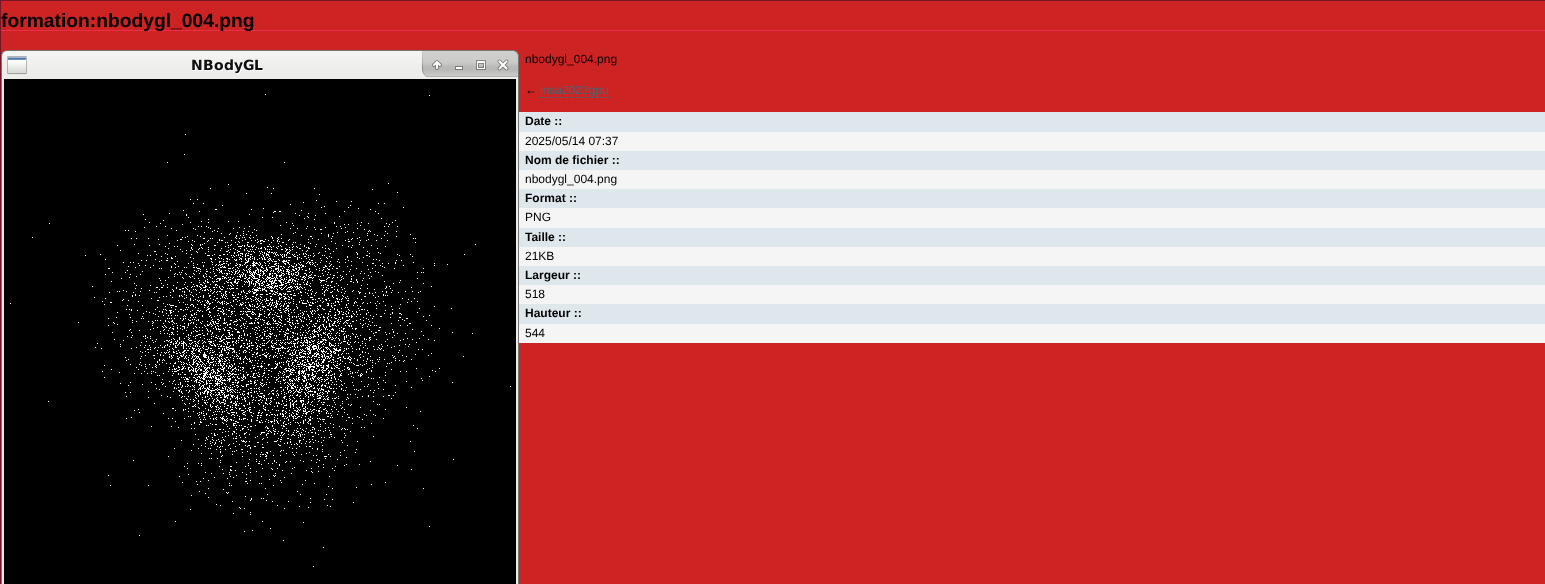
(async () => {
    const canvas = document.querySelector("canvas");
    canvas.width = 1545;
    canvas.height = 584;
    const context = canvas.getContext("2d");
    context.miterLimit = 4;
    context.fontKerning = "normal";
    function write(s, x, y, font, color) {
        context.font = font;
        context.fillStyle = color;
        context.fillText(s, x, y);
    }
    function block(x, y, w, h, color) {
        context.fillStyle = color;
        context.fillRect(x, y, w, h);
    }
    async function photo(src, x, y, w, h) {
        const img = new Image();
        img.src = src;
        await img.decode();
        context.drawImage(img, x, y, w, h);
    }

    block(0, 0, 1545, 584, "rgb(205, 35, 35)");
    context.strokeStyle = "rgb(120, 21, 39)";
    context.strokeRect(0.5, 0.5, 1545, 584);
    block(1, 30, 1544, 1, "rgb(234, 47, 76)");
    write("formation:nbodygl_004.png", 1, 27, "bold 19.25px Liberation Sans", "rgb(0, 0, 0)");
    await photo("media/1.png", 1, 50, 518, 534);
    write("nbodygl_004.png", 525, 63, "12px Liberation Sans", "rgb(0, 0, 0)");
    write("←", 525, 94, "12px Liberation Sans", "rgb(0, 0, 0)");
    write("insa2023gpu", 540, 94, "12px Liberation Sans", "rgb(67, 105, 118)");
    context.beginPath();
    context.moveTo(540, 97.5);
    context.lineTo(609, 97.5);
    context.strokeStyle = "rgb(67, 105, 118)";
    context.setLineDash([3, 2.08]);
    context.stroke();
    block(519, 112, 1026, 20, "rgb(222, 231, 236)");
    write("Date ::", 525, 125, "bold 12px Liberation Sans", "rgb(0, 0, 0)");
    block(519, 132, 1026, 19, "rgb(245, 245, 245)");
    write("2025/05/14 07:37", 525, 145, "12px Liberation Sans", "rgb(0, 0, 0)");
    block(519, 151, 1026, 19, "rgb(222, 231, 236)");
    write("Nom de fichier ::", 525, 164, "bold 12px Liberation Sans", "rgb(0, 0, 0)");
    block(519, 170, 1026, 19, "rgb(245, 245, 245)");
    write("nbodygl_004.png", 525, 183, "12px Liberation Sans", "rgb(0, 0, 0)");
    block(519, 189, 1026, 19, "rgb(222, 231, 236)");
    write("Format ::", 525, 202, "bold 12px Liberation Sans", "rgb(0, 0, 0)");
    block(519, 208, 1026, 20, "rgb(245, 245, 245)");
    write("PNG", 525, 221, "12px Liberation Sans", "rgb(0, 0, 0)");
    block(519, 228, 1026, 19, "rgb(222, 231, 236)");
    write("Taille ::", 525, 241, "bold 12px Liberation Sans", "rgb(0, 0, 0)");
    block(519, 247, 1026, 19, "rgb(245, 245, 245)");
    write("21KB", 525, 260, "12px Liberation Sans", "rgb(0, 0, 0)");
    block(519, 266, 1026, 19, "rgb(222, 231, 236)");
    write("Largeur ::", 525, 279, "bold 12px Liberation Sans", "rgb(0, 0, 0)");
    block(519, 285, 1026, 19, "rgb(245, 245, 245)");
    write("518", 525, 298, "12px Liberation Sans", "rgb(0, 0, 0)");
    block(519, 304, 1026, 20, "rgb(222, 231, 236)");
    write("Hauteur ::", 525, 317, "bold 12px Liberation Sans", "rgb(0, 0, 0)");
    block(519, 324, 1026, 19, "rgb(245, 245, 245)");
    write("544", 525, 337, "12px Liberation Sans", "rgb(0, 0, 0)");
})();
